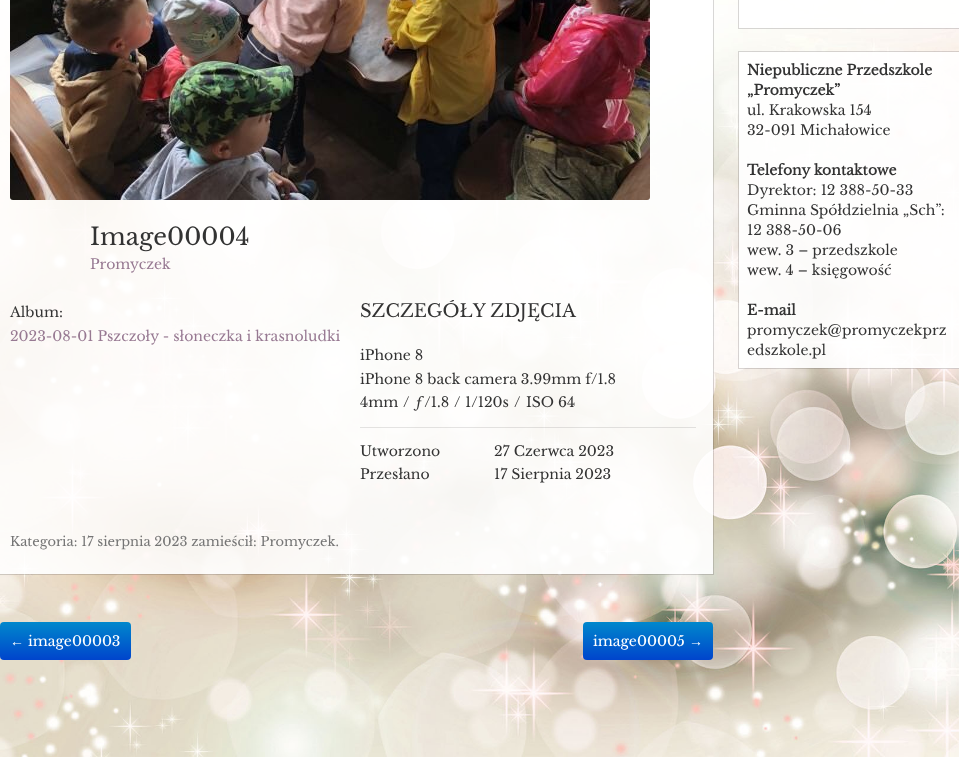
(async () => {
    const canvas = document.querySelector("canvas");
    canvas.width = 959;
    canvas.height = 757;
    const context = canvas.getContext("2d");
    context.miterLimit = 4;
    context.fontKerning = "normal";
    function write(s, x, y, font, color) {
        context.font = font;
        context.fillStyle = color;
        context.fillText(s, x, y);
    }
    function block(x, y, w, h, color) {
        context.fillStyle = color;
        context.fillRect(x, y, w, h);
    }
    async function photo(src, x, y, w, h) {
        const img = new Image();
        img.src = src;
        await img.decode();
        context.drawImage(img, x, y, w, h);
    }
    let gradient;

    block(0, 0, 959, 757, "rgb(255, 255, 255)");
    await photo("media/1.png", 0, 0, 959, 757);
    block(0, 0, 713, 574, "rgba(255, 255, 255, 0.9)");
    await photo("media/2.png", 10, 0, 640, 200);
    block(360, 427, 336, 1, "rgba(0, 0, 0, 0.1)");
    context.strokeStyle = "rgba(65, 58, 64, 0.2)";
    context.strokeRect(-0.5, -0.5, 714, 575);
    write("Image00004", 90, 245, "24px Libre Baskerville", "rgb(51, 51, 51)");
    write("Promyczek", 90, 269, "14px Libre Baskerville", "rgb(151, 121, 146)");
    write("Album:", 10, 317, "14px Libre Baskerville", "rgb(51, 51, 51)");
    write("2023-08-01 Pszczoły - słoneczka i krasnoludki", 10, 341, "14px Libre Baskerville", "rgb(151, 121, 146)");
    write("SZCZEGÓŁY ZDJĘCIA", 360, 317, "18px Libre Baskerville", "rgb(51, 51, 51)");
    write("iPhone 8", 360, 360, "14px Libre Baskerville", "rgb(51, 51, 51)");
    write("iPhone 8 back camera 3.99mm f/1.8", 360, 384, "14px Libre Baskerville", "rgb(51, 51, 51)");
    write("4mm", 360, 407, "14px Libre Baskerville", "rgb(51, 51, 51)");
    write("/", 403, 407, "14px Libre Baskerville", "rgb(51, 51, 51)");
    write("ƒ/1.8", 415, 407, "14px Libre Baskerville", "rgb(51, 51, 51)");
    write("/", 454, 407, "14px Libre Baskerville", "rgb(51, 51, 51)");
    write("1/120s", 465, 407, "14px Libre Baskerville", "rgb(51, 51, 51)");
    write("/", 514, 407, "14px Libre Baskerville", "rgb(51, 51, 51)");
    write("ISO 64", 526, 407, "14px Libre Baskerville", "rgb(51, 51, 51)");
    write("Utworzono", 360, 456, "14px Libre Baskerville", "rgb(51, 51, 51)");
    write("27 Czerwca 2023", 494, 456, "14px Libre Baskerville", "rgb(51, 51, 51)");
    write("Przesłano", 360, 479, "14px Libre Baskerville", "rgb(51, 51, 51)");
    write("17 Sierpnia 2023", 494, 479, "14px Libre Baskerville", "rgb(51, 51, 51)");
    write("Kategoria: 17 sierpnia 2023 zamieścił: Promyczek.", 10, 546, "13px Libre Baskerville", "rgb(117, 117, 117)");
    gradient = context.createLinearGradient(12, 622, 12, 660);
    gradient.addColorStop(0, "rgb(0, 136, 204)");
    gradient.addColorStop(1, "rgb(0, 68, 204)");
    context.fillStyle = gradient;
    context.beginPath();
    context.roundRect(0, 622, 24, 38, [4, 0, 0, 4]);
    context.fill();
    write("←", 10, 646, "14px Liberation Serif", "rgb(255, 255, 255)");
    gradient = context.createLinearGradient(78, 622, 78, 660);
    gradient.addColorStop(0, "rgb(0, 136, 204)");
    gradient.addColorStop(1, "rgb(0, 68, 204)");
    context.fillStyle = gradient;
    context.beginPath();
    context.roundRect(24, 622, 107, 38, [0, 4, 4, 0]);
    context.fill();
    write("image00003", 28, 646, "14px Libre Baskerville", "rgb(255, 255, 255)");
    gradient = context.createLinearGradient(636, 622, 636, 660);
    gradient.addColorStop(0, "rgb(0, 136, 204)");
    gradient.addColorStop(1, "rgb(0, 68, 204)");
    context.fillStyle = gradient;
    context.beginPath();
    context.roundRect(583, 622, 106, 38, [4, 0, 0, 4]);
    context.fill();
    write("image00005", 593, 646, "14px Libre Baskerville", "rgb(255, 255, 255)");
    gradient = context.createLinearGradient(701, 622, 701, 660);
    gradient.addColorStop(0, "rgb(0, 136, 204)");
    gradient.addColorStop(1, "rgb(0, 68, 204)");
    context.fillStyle = gradient;
    context.beginPath();
    context.roundRect(689, 622, 24, 38, [0, 4, 4, 0]);
    context.fill();
    write("→", 689, 646, "14px Liberation Serif", "rgb(255, 255, 255)");
    block(739, 0, 220, 28, "rgba(255, 255, 255, 0.9)");
    context.strokeRect(738.5, -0.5, 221, 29);
    block(739, 52, 220, 316, "rgba(255, 255, 255, 0.9)");
    context.strokeRect(738.5, 51.5, 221, 317);
    write("Niepubliczne Przedszkole", 747, 75, "bold 14px Libre Baskerville", "rgb(51, 51, 51)");
    write("„Promyczek”", 747, 95, "bold 14px Libre Baskerville", "rgb(51, 51, 51)");
    write("ul. Krakowska 154", 747, 115, "14px Libre Baskerville", "rgb(51, 51, 51)");
    write("32-091 Michałowice", 747, 135, "14px Libre Baskerville", "rgb(51, 51, 51)");
    write("Telefony kontaktowe", 747, 175, "bold 14px Libre Baskerville", "rgb(51, 51, 51)");
    write("Dyrektor: 12 388-50-33", 747, 195, "14px Libre Baskerville", "rgb(51, 51, 51)");
    write("Gminna Spółdzielnia „Sch”:", 747, 215, "14px Libre Baskerville", "rgb(51, 51, 51)");
    write("12 388-50-06", 747, 235, "14px Libre Baskerville", "rgb(51, 51, 51)");
    write("wew. 3 – przedszkole", 747, 255, "14px Libre Baskerville", "rgb(51, 51, 51)");
    write("wew. 4 – księgowość", 747, 275, "14px Libre Baskerville", "rgb(51, 51, 51)");
    write("E-mail", 747, 315, "bold 14px Libre Baskerville", "rgb(51, 51, 51)");
    write("promyczek@promyczekprz", 747, 335, "14px Libre Baskerville", "rgb(51, 51, 51)");
    write("edszkole.pl", 747, 355, "14px Libre Baskerville", "rgb(51, 51, 51)");
})();
